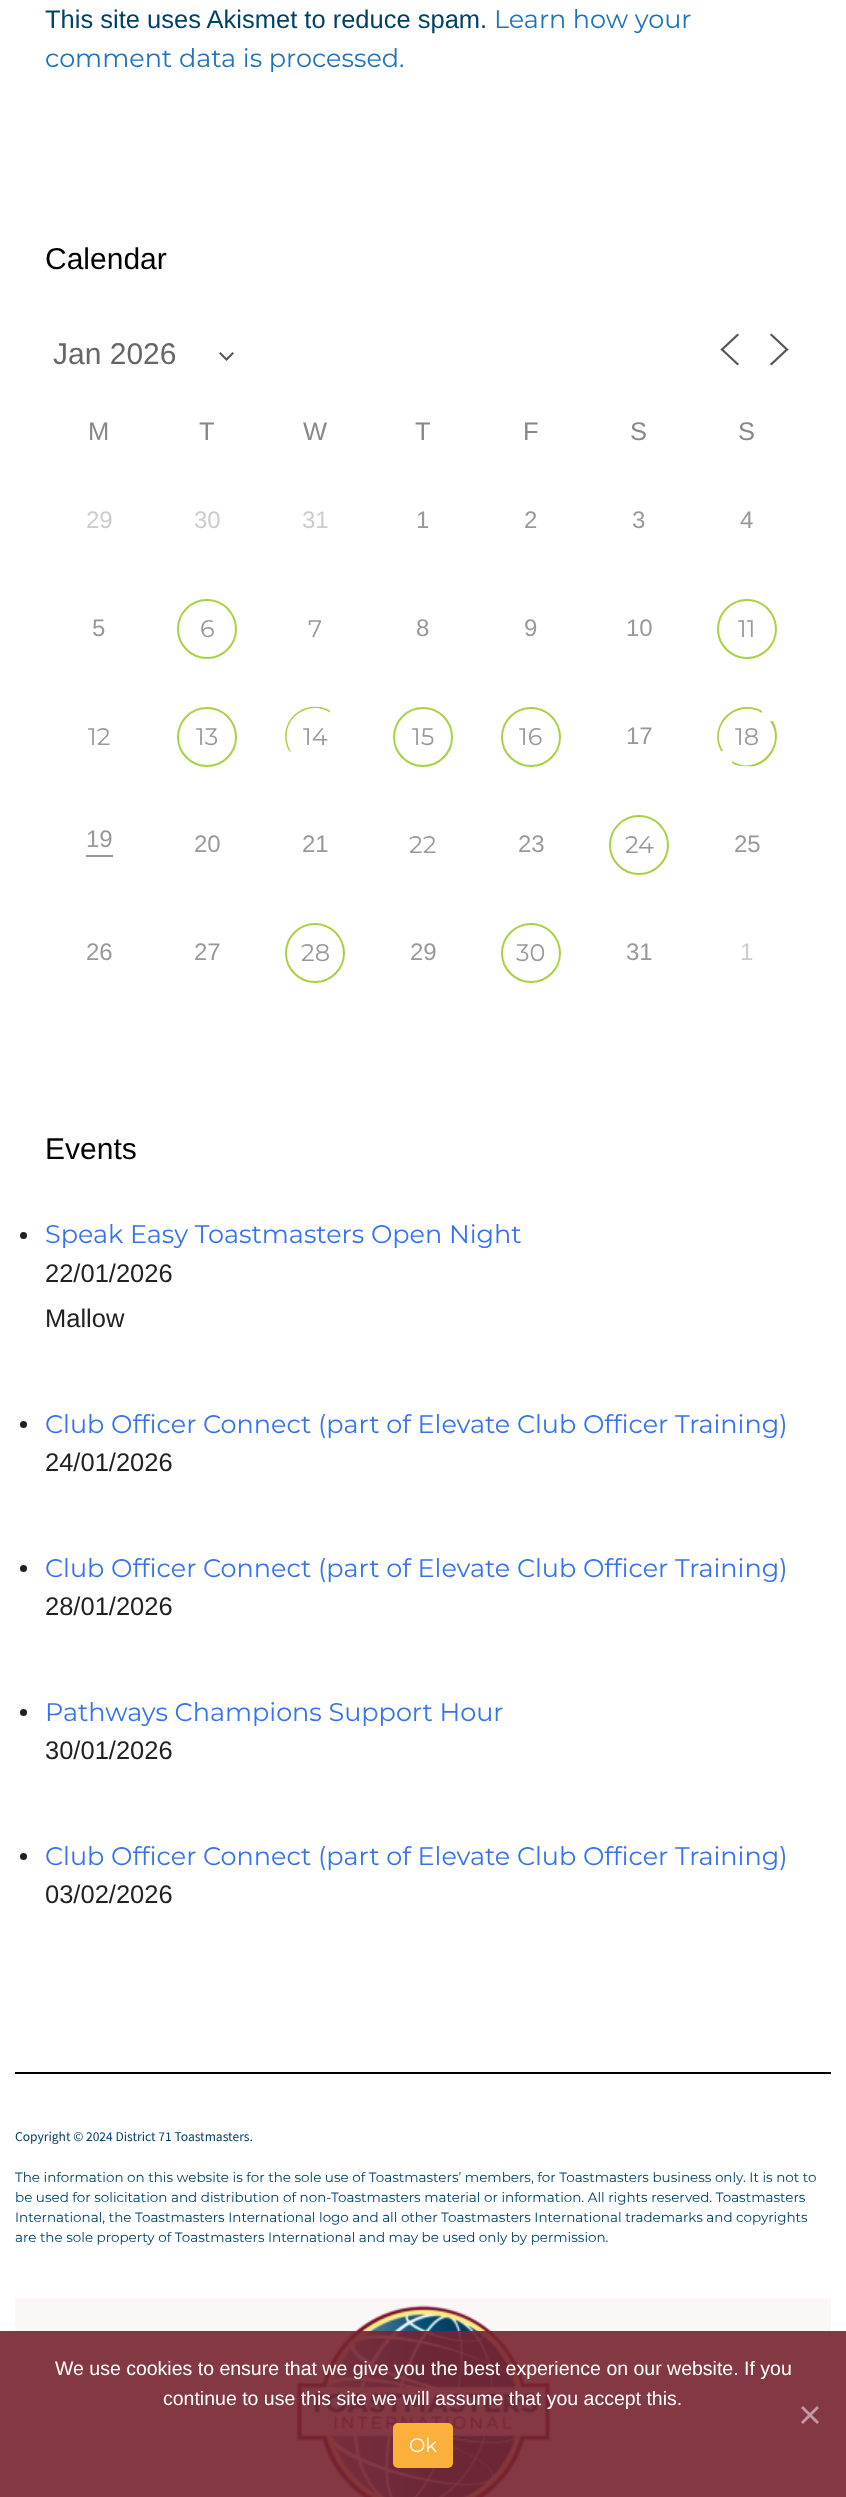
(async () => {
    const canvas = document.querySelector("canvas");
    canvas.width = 846;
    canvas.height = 2497;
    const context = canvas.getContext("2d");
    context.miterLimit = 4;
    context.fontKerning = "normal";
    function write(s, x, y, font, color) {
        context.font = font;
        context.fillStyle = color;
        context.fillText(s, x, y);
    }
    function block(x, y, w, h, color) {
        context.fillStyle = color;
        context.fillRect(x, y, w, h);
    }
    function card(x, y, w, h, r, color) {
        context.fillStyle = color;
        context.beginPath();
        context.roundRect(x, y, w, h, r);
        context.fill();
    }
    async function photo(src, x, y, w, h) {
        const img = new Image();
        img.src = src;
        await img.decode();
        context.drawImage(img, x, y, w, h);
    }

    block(0, 0, 846, 2497, "rgb(255, 255, 255)");
    write("This site uses Akismet to reduce spam.", 45, 28, "25.5px Liberation Sans", "rgb(0, 65, 101)");
    write("Learn how your", 494, 28, "25.5px Montserrat", "rgb(30, 115, 190)");
    write("comment data is processed.", 45, 67, "25.5px Montserrat", "rgb(30, 115, 190)");
    write("Calendar", 45, 269, "30px Liberation Sans", "rgb(0, 0, 0)");
    context.beginPath();
    context.moveTo(220.5, 353.5);
    context.lineTo(226.5, 359.5);
    context.lineTo(232.5, 353.5);
    context.strokeStyle = "rgb(85, 85, 85)";
    context.lineWidth = 2;
    context.lineCap = "square";
    context.stroke();
    write("Jan 2026", 53, 364, "30px Liberation Sans", "rgb(102, 102, 102)");
    context.beginPath();
    context.moveTo(737.5, 364);
    context.lineTo(722, 349.5);
    context.lineTo(737.5, 335);
    context.lineWidth = 2.2;
    context.stroke();
    context.beginPath();
    context.moveTo(771.5, 364);
    context.lineTo(787, 349.5);
    context.lineTo(771.5, 335);
    context.stroke();
    write("M", 88, 440, "25.5px Liberation Sans", "rgb(136, 136, 136)");
    write("T", 199, 440, "25.5px Liberation Sans", "rgb(136, 136, 136)");
    write("W", 303, 440, "25.5px Liberation Sans", "rgb(136, 136, 136)");
    write("T", 415, 440, "25.5px Liberation Sans", "rgb(136, 136, 136)");
    write("F", 523, 440, "25.5px Liberation Sans", "rgb(136, 136, 136)");
    write("S", 630, 440, "25.5px Liberation Sans", "rgb(136, 136, 136)");
    write("S", 738, 440, "25.5px Liberation Sans", "rgb(136, 136, 136)");
    write("29", 86, 528, "24px Liberation Sans", "rgb(204, 204, 204)");
    write("30", 194, 528, "24px Liberation Sans", "rgb(204, 204, 204)");
    write("31", 302, 528, "24px Liberation Sans", "rgb(204, 204, 204)");
    write("1", 416, 528, "24px Liberation Sans", "rgb(153, 153, 153)");
    write("2", 524, 528, "24px Liberation Sans", "rgb(153, 153, 153)");
    write("3", 632, 528, "24px Liberation Sans", "rgb(153, 153, 153)");
    write("4", 740, 528, "24px Liberation Sans", "rgb(153, 153, 153)");
    write("5", 92, 636, "24px Liberation Sans", "rgb(153, 153, 153)");
    context.beginPath();
    context.arc(207, 629, 29, 0, Math.PI * 2);
    context.strokeStyle = "rgb(168, 209, 68)";
    context.lineWidth = 2;
    context.stroke();
    write("6", 200, 637, "24px Montserrat", "rgb(153, 153, 153)");
    write("7", 308, 637, "24px Montserrat", "rgb(153, 153, 153)");
    write("8", 416, 636, "24px Liberation Sans", "rgb(153, 153, 153)");
    write("9", 524, 636, "24px Liberation Sans", "rgb(153, 153, 153)");
    write("10", 626, 636, "24px Liberation Sans", "rgb(153, 153, 153)");
    context.beginPath();
    context.arc(747, 629, 29, 0, Math.PI * 2);
    context.stroke();
    write("11", 738, 637, "24px Montserrat", "rgb(153, 153, 153)");
    write("12", 88, 745, "24px Montserrat", "rgb(153, 153, 153)");
    context.beginPath();
    context.arc(207, 737, 29, 0, Math.PI * 2);
    context.stroke();
    write("13", 196, 745, "24px Montserrat", "rgb(153, 153, 153)");
    context.save();
    context.beginPath();
    context.moveTo(285, 706.5);
    context.lineTo(330, 706.5);
    context.lineTo(330, 721.5);
    context.lineTo(345, 721.5);
    context.lineTo(345, 766.5);
    context.lineTo(300, 766.5);
    context.lineTo(300, 751.5);
    context.lineTo(285, 751.5);
    context.closePath();
    context.clip();
    context.beginPath();
    context.moveTo(294.5, 757);
    context.bezierCurveTo(290.5, 753, 287.5, 748, 286.5, 742);
    context.bezierCurveTo(280.5, 714, 315.5, 695.5, 335.5, 716);
    context.lineWidth = 1.5;
    context.lineCap = "butt";
    context.stroke();
    context.restore();
    write("14", 303, 745, "24px Montserrat", "rgb(153, 153, 153)");
    context.beginPath();
    context.arc(423, 737, 29, 0, Math.PI * 2);
    context.stroke();
    write("15", 412, 745, "24px Montserrat", "rgb(153, 153, 153)");
    context.beginPath();
    context.arc(531, 737, 29, 0, Math.PI * 2);
    context.stroke();
    write("16", 519, 745, "24px Montserrat", "rgb(153, 153, 153)");
    write("17", 626, 744, "24px Liberation Sans", "rgb(153, 153, 153)");
    context.fillStyle = "rgb(168, 209, 68)";
    context.beginPath();
    context.moveTo(747, 707);
    context.bezierCurveTo(752, 707, 758, 708, 762, 711);
    context.lineTo(762, 713);
    context.bezierCurveTo(737, 698, 708, 726, 723, 751);
    context.lineTo(721, 751);
    context.bezierCurveTo(710, 732, 724, 707, 747, 707);
    context.closePath();
    context.moveTo(741, 766);
    context.bezierCurveTo(738, 766, 735, 765, 732, 763);
    context.lineTo(732, 761);
    context.bezierCurveTo(757, 777, 787, 746, 770, 721);
    context.lineTo(773, 721);
    context.bezierCurveTo(782, 737, 775, 758, 758, 765);
    context.bezierCurveTo(753, 767, 747, 766, 741, 766);
    context.closePath();
    context.fill("evenodd");
    write("18", 735, 745, "24px Montserrat", "rgb(153, 153, 153)");
    write("19", 86, 847, "24px Liberation Sans", "rgb(153, 153, 153)");
    block(86, 855, 27, 2, "rgb(153, 153, 153)");
    write("20", 194, 852, "24px Liberation Sans", "rgb(153, 153, 153)");
    write("21", 302, 852, "24px Liberation Sans", "rgb(153, 153, 153)");
    write("22", 409, 853, "24px Montserrat", "rgb(153, 153, 153)");
    write("23", 518, 852, "24px Liberation Sans", "rgb(153, 153, 153)");
    context.beginPath();
    context.arc(639, 845, 29, 0, Math.PI * 2);
    context.stroke();
    write("24", 625, 853, "24px Montserrat", "rgb(153, 153, 153)");
    write("25", 734, 852, "24px Liberation Sans", "rgb(153, 153, 153)");
    write("26", 86, 960, "24px Liberation Sans", "rgb(153, 153, 153)");
    write("27", 194, 960, "24px Liberation Sans", "rgb(153, 153, 153)");
    context.beginPath();
    context.arc(315, 953, 29, 0, Math.PI * 2);
    context.stroke();
    write("28", 301, 961, "24px Montserrat", "rgb(153, 153, 153)");
    write("29", 410, 960, "24px Liberation Sans", "rgb(153, 153, 153)");
    context.beginPath();
    context.arc(531, 953, 29, 0, Math.PI * 2);
    context.stroke();
    write("30", 516, 961, "24px Montserrat", "rgb(153, 153, 153)");
    write("31", 626, 960, "24px Liberation Sans", "rgb(153, 153, 153)");
    write("1", 740, 960, "24px Liberation Sans", "rgb(204, 204, 204)");
    write("Events", 45, 1159, "30px Liberation Sans", "rgb(0, 0, 0)");
    context.fillStyle = "rgb(33, 33, 33)";
    context.beginPath();
    context.arc(23.5, 1235.5, 3.5, 0, Math.PI * 2);
    context.fill();
    write("Speak Easy Toastmasters Open Night", 45, 1243, "25.5px Montserrat", "rgb(51, 114, 240)");
    write("22/01/2026", 45, 1282, "25.5px Liberation Sans", "rgb(33, 33, 33)");
    write("Mallow", 45, 1327, "25.5px Liberation Sans", "rgb(33, 33, 33)");
    context.beginPath();
    context.arc(23.5, 1424.5, 3.5, 0, Math.PI * 2);
    context.fill();
    write("Club Officer Connect (part of Elevate Club Officer Training)", 45, 1433, "25.5px Montserrat", "rgb(51, 114, 240)");
    write("24/01/2026", 45, 1471, "25.5px Liberation Sans", "rgb(33, 33, 33)");
    context.beginPath();
    context.arc(23.5, 1568.5, 3.5, 0, Math.PI * 2);
    context.fill();
    write("Club Officer Connect (part of Elevate Club Officer Training)", 45, 1577, "25.5px Montserrat", "rgb(51, 114, 240)");
    write("28/01/2026", 45, 1615, "25.5px Liberation Sans", "rgb(33, 33, 33)");
    context.beginPath();
    context.arc(23.5, 1712.5, 3.5, 0, Math.PI * 2);
    context.fill();
    write("Pathways Champions Support Hour", 45, 1721, "25.5px Montserrat", "rgb(51, 114, 240)");
    write("30/01/2026", 45, 1759, "25.5px Liberation Sans", "rgb(33, 33, 33)");
    context.beginPath();
    context.arc(23.5, 1856.5, 3.5, 0, Math.PI * 2);
    context.fill();
    write("Club Officer Connect (part of Elevate Club Officer Training)", 45, 1865, "25.5px Montserrat", "rgb(51, 114, 240)");
    write("03/02/2026", 45, 1903, "25.5px Liberation Sans", "rgb(33, 33, 33)");
    block(15, 2072, 816, 2, "rgb(0, 0, 0)");
    write("Copyright © 2024 District 71 Toastmasters.", 15, 2141, "13.5px Source Sans Pro", "rgb(0, 65, 101)");
    write("The information on this website is for the sole use of Toastmasters’ members, for Toastmasters business only. It is not to", 15, 2182, "13.5px Montserrat", "rgb(0, 65, 101)");
    write("be used for solicitation and distribution of non-Toastmasters material or information. All rights reserved. Toastmasters", 15, 2202, "13.5px Montserrat", "rgb(0, 65, 101)");
    write("International, the Toastmasters International logo and all other Toastmasters International trademarks and copyrights", 15, 2222, "13.5px Montserrat", "rgb(0, 65, 101)");
    write("are the sole property of Toastmasters International and may be used only by permission.", 15, 2242, "13.5px Montserrat", "rgb(0, 65, 101)");
    block(15, 2298, 816, 199, "rgb(252, 247, 247)");
    await photo("media/1.png", 296, 2305, 255, 192);
    block(0, 2331, 846, 166, "rgba(119, 36, 50, 0.91)");
    write("We use cookies to ensure that we give you the best experience on our website. If you", 55, 2375, "19.5px Liberation Sans", "rgb(255, 255, 255)");
    write("continue to use this site we will assume that you accept this.", 163, 2405, "19.5px Liberation Sans", "rgb(255, 255, 255)");
    context.fillStyle = "rgb(193, 155, 161)";
    context.beginPath();
    context.moveTo(817, 2406);
    context.lineTo(819, 2408);
    context.lineTo(803, 2424);
    context.lineTo(801, 2422);
    context.closePath();
    context.fill();
    context.beginPath();
    context.moveTo(801, 2408);
    context.lineTo(803, 2406);
    context.lineTo(819, 2422);
    context.lineTo(817, 2424);
    context.closePath();
    context.fill();
    card(393, 2423, 60, 45, 5, "rgb(251, 176, 59)");
    write("Ok", 409, 2452, "19.5px Montserrat", "rgb(255, 255, 255)");
})();
